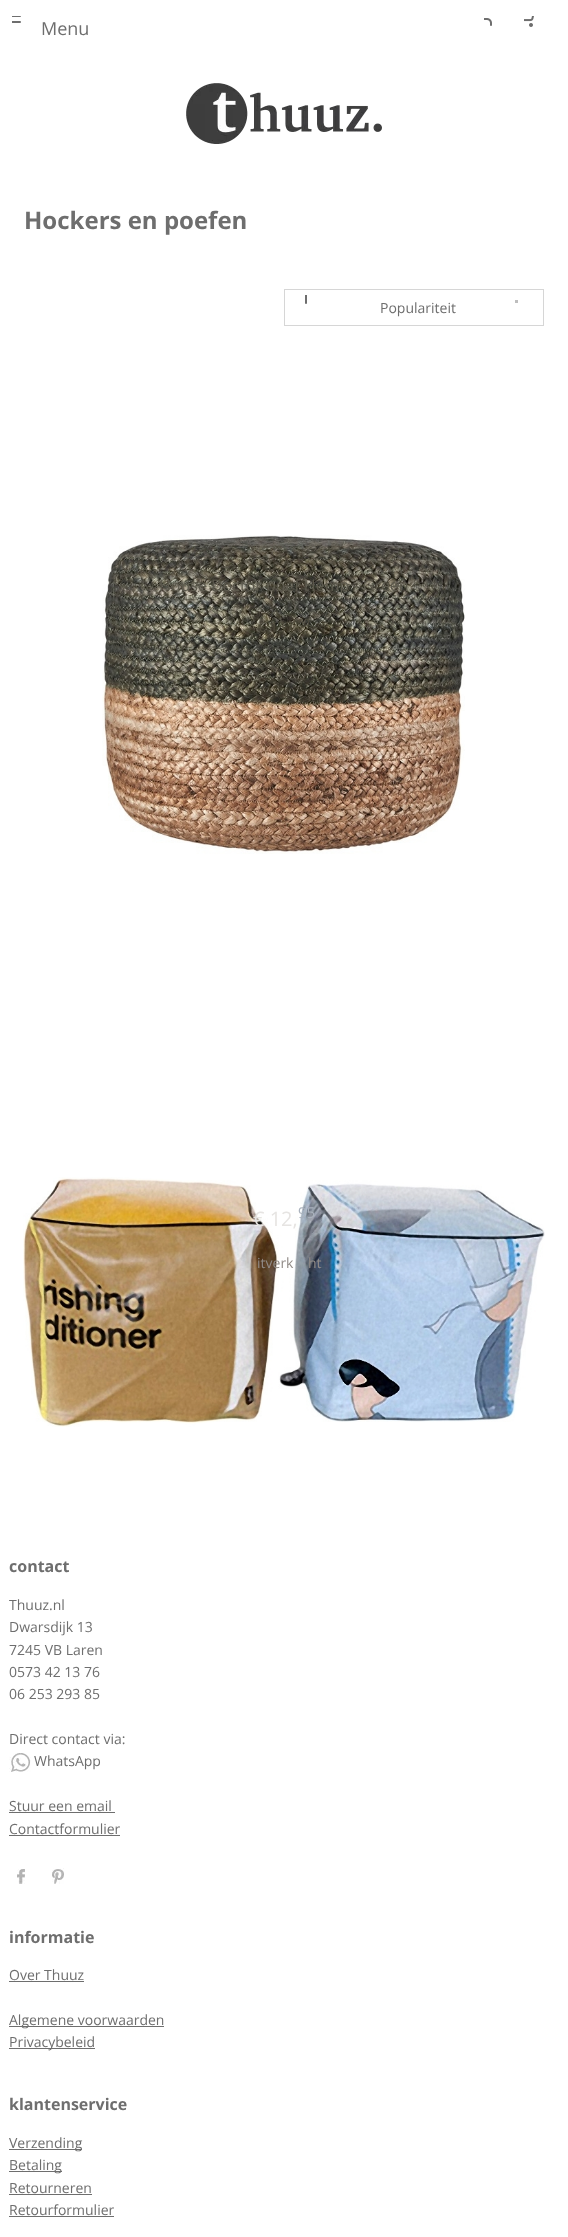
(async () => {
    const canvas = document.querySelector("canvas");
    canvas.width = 568;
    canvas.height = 2237;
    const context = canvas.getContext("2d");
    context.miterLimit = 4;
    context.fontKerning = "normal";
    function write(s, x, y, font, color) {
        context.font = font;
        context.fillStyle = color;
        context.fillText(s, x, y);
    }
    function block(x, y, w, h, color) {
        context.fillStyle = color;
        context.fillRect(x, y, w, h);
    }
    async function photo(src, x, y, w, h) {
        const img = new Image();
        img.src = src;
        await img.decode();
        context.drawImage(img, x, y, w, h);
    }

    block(0, 0, 568, 2237, "rgb(255, 255, 255)");
    await photo("media/1.png", 12, 16, 9, 7);
    write("Menu", 41, 35, "18px Open Sans", "rgb(110, 110, 110)");
    await photo("media/2.png", 484, 18, 8, 8);
    await photo("media/3.png", 524, 16, 10, 11);
    await photo("media/4.png", 186, 83, 196, 61);
    write("Hockers en poefen", 24, 229, "bold 24px Open Sans", "rgb(110, 110, 110)");
    context.strokeStyle = "rgb(214, 214, 214)";
    context.strokeRect(284.5, 289.5, 259, 36);
    await photo("media/5.png", 305, 295, 2, 9);
    block(515, 300, 3, 3, "rgb(190, 190, 190)");
    write("Populariteit", 380, 313, "14px Open Sans", "rgb(110, 110, 110)");
    await photo("media/6.png", 102, 535, 363, 319);
    write("House Doctor poef Hemp - Green", 159, 591, "16px Open Sans", "rgb(92, 89, 77)");
    write("€ 137,", 258, 632, "14px Open Sans", "rgb(80, 76, 62)");
    write("00", 298, 626, "10px Open Sans", "rgb(80, 76, 62)");
    await photo("media/7.png", 23, 1177, 522, 250);
    write("€ 12,", 253, 1226, "20px Open Sans", "rgb(230, 228, 226)");
    write("95", 298, 1218, "15px Open Sans", "rgb(170, 178, 189)");
    write("itverk", 257, 1268, "14px Open Sans", "rgb(145, 139, 135)");
    write("ht", 308, 1268, "14px Open Sans", "rgb(145, 139, 135)");
    write("contact", 9, 1572, "bold 16px Open Sans", "rgb(110, 110, 110)");
    write("Thuuz.nl", 9, 1610, "14px Open Sans", "rgb(110, 110, 110)");
    write("Dwarsdijk 13", 9, 1632, "14px Open Sans", "rgb(110, 110, 110)");
    write("7245 VB Laren", 9, 1655, "14px Open Sans", "rgb(110, 110, 110)");
    write("0573 42 13 76", 9, 1677, "14px Open Sans", "rgb(110, 110, 110)");
    write("06 253 293 85", 9, 1699, "14px Open Sans", "rgb(110, 110, 110)");
    write("Direct contact via:", 9, 1744, "14px Open Sans", "rgb(110, 110, 110)");
    await photo("media/8.png", 9, 1753, 22, 19);
    write("WhatsApp", 34, 1766, "14px Open Sans", "rgb(110, 110, 110)");
    write("Stuur een email", 9, 1811, "14px Open Sans", "rgb(110, 110, 110)");
    block(9, 1812, 106, 1, "rgb(110, 110, 110)");
    write("Contactformulier", 9, 1834, "14px Open Sans", "rgb(110, 110, 110)");
    block(9, 1835, 111, 1, "rgb(110, 110, 110)");
    await photo("media/9.png", 17, 1869, 8, 15);
    await photo("media/10.png", 52, 1868, 12, 16);
    write("informatie", 9, 1943, "bold 16px Open Sans", "rgb(110, 110, 110)");
    write("Over Thuuz", 9, 1980, "14px Open Sans", "rgb(110, 110, 110)");
    block(9, 1981, 75, 1, "rgb(110, 110, 110)");
    block(9, 2026, 155, 1, "rgb(110, 110, 110)");
    write("Algemene voorwaarden", 9, 2025, "14px Open Sans", "rgb(110, 110, 110)");
    block(9, 2048, 86, 1, "rgb(110, 110, 110)");
    write("Privacybeleid", 9, 2047, "14px Open Sans", "rgb(110, 110, 110)");
    write("klantenservice", 9, 2110, "bold 16px Open Sans", "rgb(110, 110, 110)");
    block(9, 2149, 73, 1, "rgb(110, 110, 110)");
    write("Verzending", 9, 2148, "14px Open Sans", "rgb(110, 110, 110)");
    block(9, 2171, 53, 1, "rgb(110, 110, 110)");
    write("Betaling", 9, 2170, "14px Open Sans", "rgb(110, 110, 110)");
    write("Retourneren", 9, 2193, "14px Open Sans", "rgb(110, 110, 110)");
    block(9, 2194, 83, 1, "rgb(110, 110, 110)");
    write("Retourformulier", 9, 2215, "14px Open Sans", "rgb(110, 110, 110)");
    block(9, 2216, 105, 1, "rgb(110, 110, 110)");
})();
